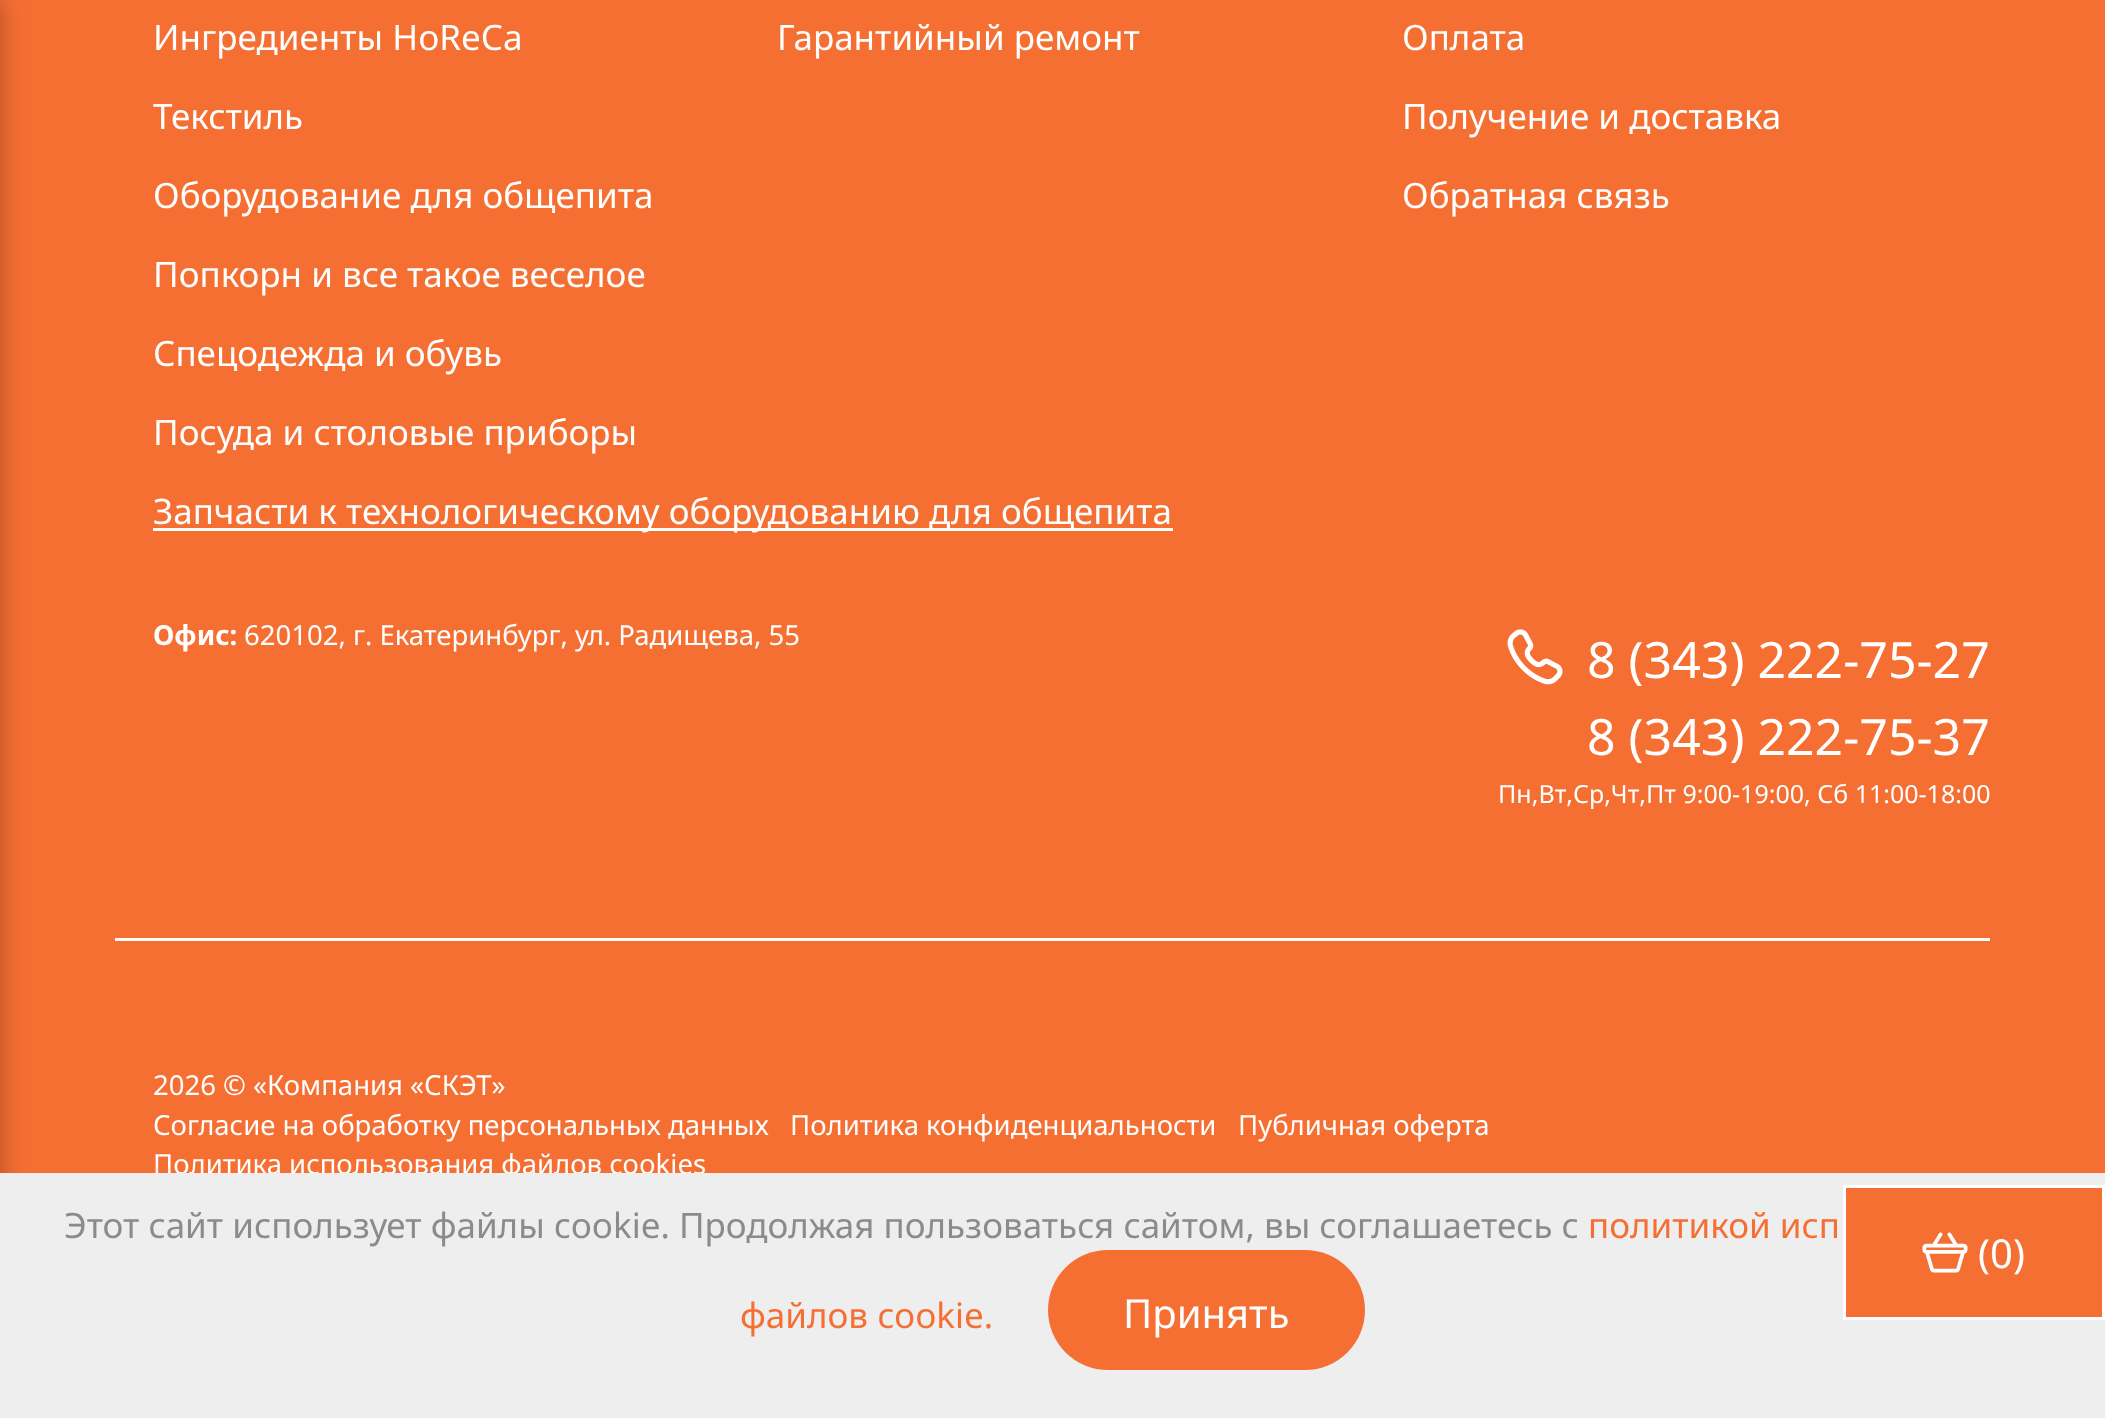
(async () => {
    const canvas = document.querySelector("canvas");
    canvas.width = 2105;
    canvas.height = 1418;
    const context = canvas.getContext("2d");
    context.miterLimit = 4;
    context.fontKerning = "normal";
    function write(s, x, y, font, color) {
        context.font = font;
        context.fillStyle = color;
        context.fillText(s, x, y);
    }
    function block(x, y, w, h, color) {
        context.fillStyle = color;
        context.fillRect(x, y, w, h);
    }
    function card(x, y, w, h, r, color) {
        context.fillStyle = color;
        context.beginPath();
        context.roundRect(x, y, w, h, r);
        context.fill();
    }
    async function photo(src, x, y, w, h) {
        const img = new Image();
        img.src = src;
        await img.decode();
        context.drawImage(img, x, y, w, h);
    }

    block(0, 0, 2105, 1418, "rgb(245, 111, 51)");
    context.fillStyle = "rgba(0, 0, 0, 0.3)";
    context.filter = "blur(12.5px)";
    context.beginPath();
    context.rect(-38, 0, 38, 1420);
    context.fill();
    context.filter = "none";
    block(115, 938, 1875, 3, "rgb(255, 255, 255)");
    write("Ингредиенты HoReCa", 153, 50, "35px Noto Sans", "rgb(255, 255, 255)");
    write("Текстиль", 153, 129, "35px Noto Sans", "rgb(255, 255, 255)");
    write("Оборудование для общепита", 153, 208, "35px Noto Sans", "rgb(255, 255, 255)");
    write("Попкорн и все такое веселое", 153, 287, "35px Noto Sans", "rgb(255, 255, 255)");
    write("Спецодежда и обувь", 153, 366, "35px Noto Sans", "rgb(255, 255, 255)");
    write("Посуда и столовые приборы", 153, 445, "35px Noto Sans", "rgb(255, 255, 255)");
    block(153, 528, 1020, 3, "rgb(255, 255, 255)");
    write("Запчасти к технологическому оборудованию для общепита", 153, 524, "35px Noto Sans", "rgb(255, 255, 255)");
    write("Гарантийный ремонт", 777, 50, "35px Noto Sans", "rgb(255, 255, 255)");
    write("Оплата", 1402, 50, "35px Noto Sans", "rgb(255, 255, 255)");
    write("Получение и доставка", 1402, 129, "35px Noto Sans", "rgb(255, 255, 255)");
    write("Обратная связь", 1402, 208, "35px Noto Sans", "rgb(255, 255, 255)");
    write("Офис:", 153, 645, "bold 27.5px Noto Sans", "rgb(255, 255, 255)");
    write("620102, г. Екатеринбург, ул. Радищева, 55", 244, 645, "27.5px Noto Sans", "rgb(255, 255, 255)");
    await photo("media/1.png", 1507, 629, 56, 56);
    write("8 (343) 222-75-27", 1587, 678, "50px Noto Sans", "rgb(255, 255, 255)");
    write("8 (343) 222-75-37", 1587, 755, "50px Noto Sans", "rgb(255, 255, 255)");
    write("Пн,Вт,Ср,Чт,Пт 9:00-19:00, Сб 11:00-18:00", 1498, 803, "25px Noto Sans", "rgb(255, 255, 255)");
    write("2026 © «Компания «СКЭТ»", 153, 1095, "27.5px Noto Sans", "rgb(255, 255, 255)");
    write("Согласие на обработку персональных данных", 153, 1135, "27.5px Noto Sans", "rgb(255, 255, 255)");
    write("Политика конфиденциальности", 790, 1135, "27.5px Noto Sans", "rgb(255, 255, 255)");
    write("Публичная оферта", 1238, 1135, "27.5px Noto Sans", "rgb(255, 255, 255)");
    write("Политика использования файлов cookies", 153, 1174, "27.5px Noto Sans", "rgb(255, 255, 255)");
    block(0, 1173, 2105, 245, "rgb(238, 238, 238)");
    context.fillStyle = "rgb(245, 111, 51)";
    context.beginPath();
    context.rect(1844.5, 1186.5, 259, 132);
    context.fill();
    context.strokeStyle = "rgb(255, 255, 255)";
    context.lineWidth = 3;
    context.stroke();
    await photo("media/2.png", 1922, 1232, 46, 41);
    write("(0)", 1978, 1268, "40px Noto Sans", "rgb(255, 255, 255)");
    write("Этот сайт использует файлы cookie. Продолжая пользоваться сайтом, вы соглашаетесь с", 64, 1238, "35px Noto Sans", "rgb(139, 139, 139)");
    write("политикой исп", 1588, 1238, "35px Noto Sans", "rgb(245, 111, 51)");
    write("файлов cookie.", 740, 1328, "35px Noto Sans", "rgb(245, 111, 51)");
    card(1048, 1250, 317, 120, 60, "rgb(245, 111, 51)");
    write("Принять", 1123, 1328, "40px Noto Sans", "rgb(255, 255, 255)");
})();
